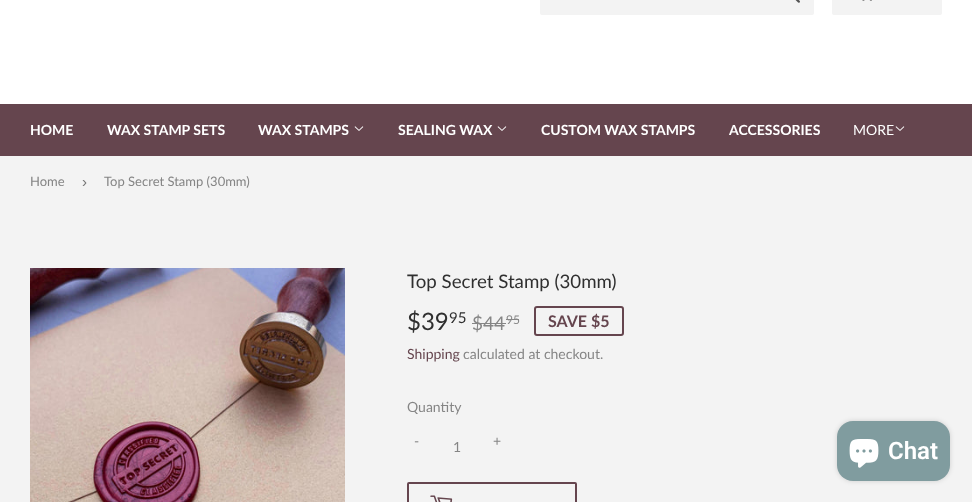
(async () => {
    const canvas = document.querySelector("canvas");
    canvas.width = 972;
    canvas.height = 502;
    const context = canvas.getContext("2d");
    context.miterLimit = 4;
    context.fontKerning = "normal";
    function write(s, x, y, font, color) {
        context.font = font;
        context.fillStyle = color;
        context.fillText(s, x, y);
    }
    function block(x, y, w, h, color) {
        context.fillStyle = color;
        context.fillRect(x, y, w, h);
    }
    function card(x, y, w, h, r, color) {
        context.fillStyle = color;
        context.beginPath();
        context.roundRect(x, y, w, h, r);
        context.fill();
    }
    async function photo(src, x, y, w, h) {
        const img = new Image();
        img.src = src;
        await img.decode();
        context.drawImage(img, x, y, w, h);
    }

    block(0, 0, 972, 502, "rgb(243, 243, 243)");
    block(0, 0, 972, 104, "rgb(255, 255, 255)");
    card(540, -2, 274, 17, 2, "rgb(243, 243, 243)");
    await photo("media/1.png", 795, 0, 5, 3);
    card(832, -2, 110, 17, 2, "rgb(243, 243, 243)");
    await photo("media/2.png", 862, 0, 10, 1);
    block(0, 104, 972, 52, "rgb(101, 69, 78)");
    write("HOME", 30, 135, "bold 14px Lato", "rgb(255, 255, 255)");
    write("WAX STAMP SETS", 107, 135, "bold 14px Lato", "rgb(255, 255, 255)");
    write("WAX STAMPS", 258, 135, "bold 14px Lato", "rgb(255, 255, 255)");
    await photo("media/3.png", 354, 126, 10, 5);
    write("SEALING WAX", 398, 135, "bold 14px Lato", "rgb(255, 255, 255)");
    await photo("media/3.png", 497, 126, 10, 5);
    write("CUSTOM WAX STAMPS", 541, 135, "bold 14px Lato", "rgb(255, 255, 255)");
    write("ACCESSORIES", 729, 135, "bold 14px Lato", "rgb(255, 255, 255)");
    write("MORE", 853, 135, "14px Lato", "rgb(255, 255, 255)");
    await photo("media/3.png", 895, 126, 10, 5);
    write("Home", 30, 186, "13px Lato", "rgb(133, 133, 133)");
    write("›", 82, 187, "15px Liberation Sans", "rgb(118, 118, 118)");
    write("Top Secret Stamp (30mm)", 104, 186, "13px Lato", "rgb(133, 133, 133)");
    await photo("media/4.png", 30, 268, 315, 234);
    write("Top Secret Stamp (30mm)", 407, 288, "18.7px Lato", "rgb(47, 47, 47)");
    write("$39", 407, 330, "24px Lato", "rgb(47, 47, 47)");
    write("95", 449, 323, "15px Lato", "rgb(47, 47, 47)");
    write("$44", 472, 330, "19px Lato", "rgb(133, 133, 133)");
    block(472, 323, 34, 1, "rgb(133, 133, 133)");
    write("95", 506, 324, "12px Lato", "rgb(133, 133, 133)");
    block(506, 319, 13, 1, "rgb(133, 133, 133)");
    context.beginPath();
    context.roundRect(535, 307, 88, 28, 2);
    context.strokeStyle = "rgb(101, 69, 78)";
    context.lineWidth = 2;
    context.stroke();
    write("SAVE $5", 548, 327, "bold 16px Lato", "rgb(101, 69, 78)");
    write("Shipping", 407, 359, "14px Lato", "rgb(101, 69, 78)");
    write("calculated at checkout.", 463, 359, "14px Lato", "rgb(133, 133, 133)");
    write("Quantity", 407, 412, "14px Lato", "rgb(133, 133, 133)");
    write("-", 414, 446, "14px Lato", "rgb(133, 133, 133)");
    write("1", 453, 452, "14px Lato", "rgb(133, 133, 133)");
    write("+", 493, 446, "14px Lato", "rgb(133, 133, 133)");
    context.beginPath();
    context.roundRect(408, 483, 168, 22, 1);
    context.stroke();
    await photo("media/5.png", 430, 495, 23, 7);
    context.fillStyle = "rgba(0, 0, 0, 0.15)";
    context.filter = "blur(2.5px)";
    context.beginPath();
    context.roundRect(837, 421, 113, 60, 16);
    context.fill();
    context.filter = "none";
    card(837, 421, 113, 60, 16, "rgb(128, 156, 159)");
    await photo("media/6.png", 849, 439, 30, 29);
    write("Chat", 888, 459, "600 24px Roboto", "rgb(255, 255, 255)");
})();
